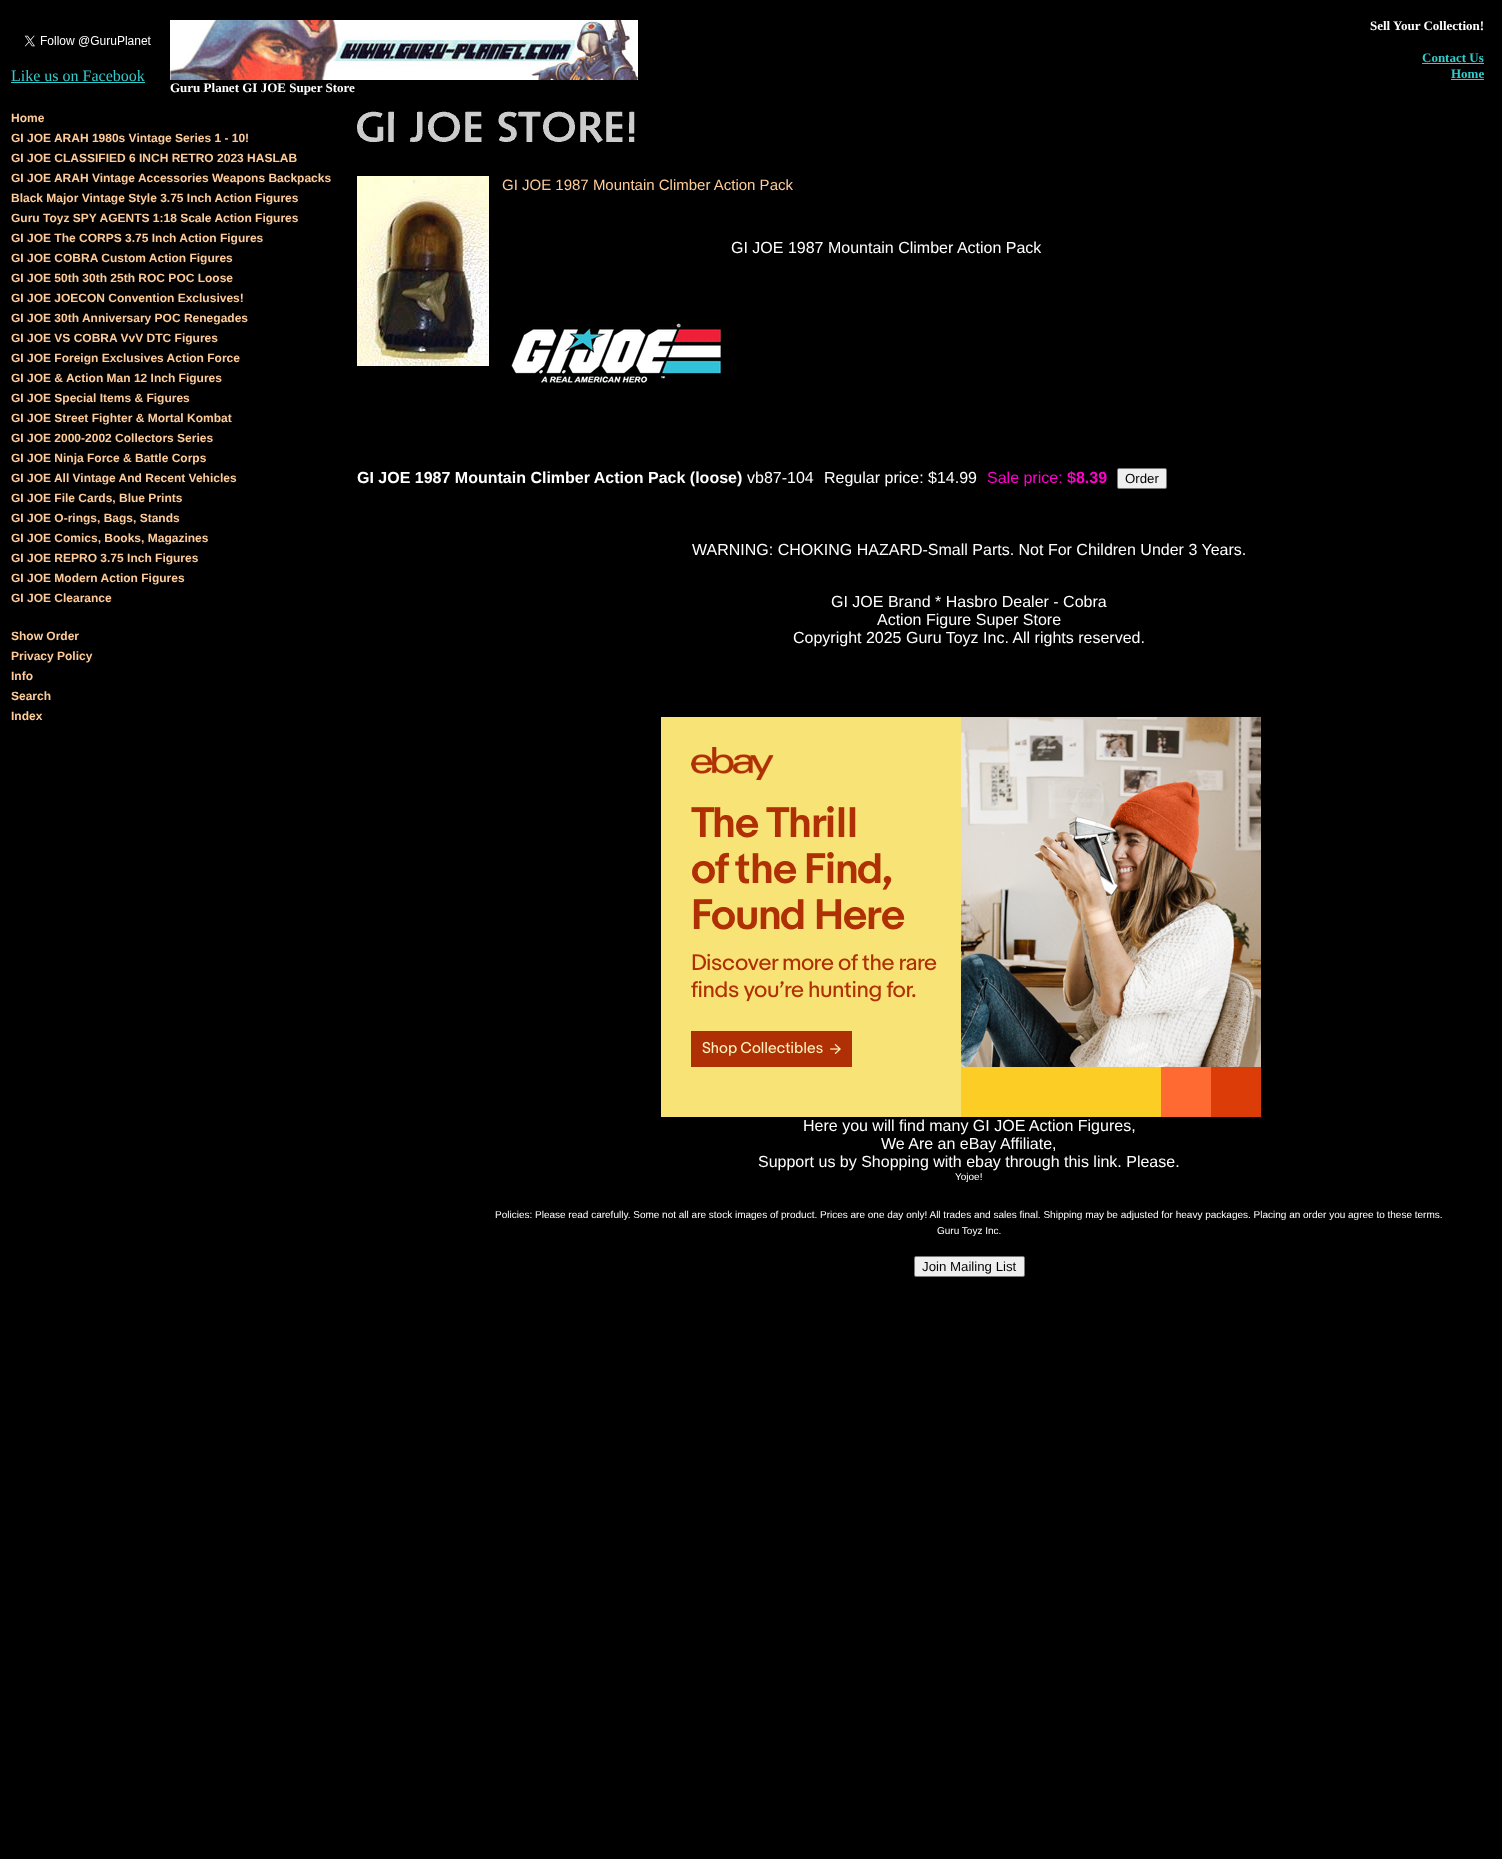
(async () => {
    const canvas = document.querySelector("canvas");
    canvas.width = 1502;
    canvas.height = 1859;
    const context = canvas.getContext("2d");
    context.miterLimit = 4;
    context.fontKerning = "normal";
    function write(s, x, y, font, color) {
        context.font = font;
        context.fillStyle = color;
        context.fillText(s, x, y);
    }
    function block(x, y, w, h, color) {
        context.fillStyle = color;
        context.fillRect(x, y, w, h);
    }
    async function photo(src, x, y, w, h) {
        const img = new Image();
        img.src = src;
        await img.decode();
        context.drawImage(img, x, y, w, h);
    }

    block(0, 0, 1502, 1859, "rgb(0, 0, 0)");
    await photo("media/1.png", 24, 35, 127, 12);
    write("Like us on Facebook", 11, 81, "16px Liberation Serif", "rgb(51, 204, 204)");
    block(11, 82, 134, 1, "rgb(51, 204, 204)");
    write("Sell", 1370, 30, "bold 13px Liberation Serif", "rgb(255, 255, 255)");
    write("Your Collection!", 1393, 30, "bold 13px Liberation Serif", "rgb(255, 255, 255)");
    write("Contact Us", 1422, 62, "bold 13px Liberation Serif", "rgb(51, 204, 204)");
    block(1422, 63, 62, 1, "rgb(51, 204, 204)");
    write("Home", 1451, 78, "bold 13px Liberation Serif", "rgb(51, 204, 204)");
    block(1451, 79, 33, 1, "rgb(51, 204, 204)");
    await photo("media/2.png", 170, 20, 468, 60);
    write("Guru Planet GI JOE Super Store", 170, 92, "bold 13px Liberation Serif", "rgb(255, 255, 255)");
    write("Home", 11, 122, "bold 12px Liberation Sans", "rgb(255, 204, 153)");
    write("GI JOE ARAH 1980s Vintage Series 1 - 10!", 11, 142, "bold 12px Liberation Sans", "rgb(255, 204, 153)");
    write("GI JOE CLASSIFIED 6 INCH RETRO 2023 HASLAB", 11, 162, "bold 12px Liberation Sans", "rgb(255, 204, 153)");
    write("GI JOE ARAH Vintage Accessories Weapons Backpacks", 11, 182, "bold 12px Liberation Sans", "rgb(255, 204, 153)");
    write("Black Major Vintage Style 3.75 Inch Action Figures", 11, 202, "bold 12px Liberation Sans", "rgb(255, 204, 153)");
    write("Guru Toyz SPY AGENTS 1:18 Scale Action Figures", 11, 222, "bold 12px Liberation Sans", "rgb(255, 204, 153)");
    write("GI JOE The CORPS 3.75 Inch Action Figures", 11, 242, "bold 12px Liberation Sans", "rgb(255, 204, 153)");
    write("GI JOE COBRA Custom Action Figures", 11, 262, "bold 12px Liberation Sans", "rgb(255, 204, 153)");
    write("GI JOE 50th 30th 25th ROC POC Loose", 11, 282, "bold 12px Liberation Sans", "rgb(255, 204, 153)");
    write("GI JOE JOECON Convention Exclusives!", 11, 302, "bold 12px Liberation Sans", "rgb(255, 204, 153)");
    write("GI JOE 30th Anniversary POC Renegades", 11, 322, "bold 12px Liberation Sans", "rgb(255, 204, 153)");
    write("GI JOE VS COBRA VvV DTC Figures", 11, 342, "bold 12px Liberation Sans", "rgb(255, 204, 153)");
    write("GI JOE Foreign Exclusives Action Force", 11, 362, "bold 12px Liberation Sans", "rgb(255, 204, 153)");
    write("GI JOE & Action Man 12 Inch Figures", 11, 382, "bold 12px Liberation Sans", "rgb(255, 204, 153)");
    write("GI JOE Special Items & Figures", 11, 402, "bold 12px Liberation Sans", "rgb(255, 204, 153)");
    write("GI JOE Street Fighter & Mortal Kombat", 11, 422, "bold 12px Liberation Sans", "rgb(255, 204, 153)");
    write("GI JOE 2000-2002 Collectors Series", 11, 442, "bold 12px Liberation Sans", "rgb(255, 204, 153)");
    write("GI JOE Ninja Force & Battle Corps", 11, 462, "bold 12px Liberation Sans", "rgb(255, 204, 153)");
    write("GI JOE All Vintage And Recent Vehicles", 11, 482, "bold 12px Liberation Sans", "rgb(255, 204, 153)");
    write("GI JOE File Cards, Blue Prints", 11, 502, "bold 12px Liberation Sans", "rgb(255, 204, 153)");
    write("GI JOE O-rings, Bags, Stands", 11, 522, "bold 12px Liberation Sans", "rgb(255, 204, 153)");
    write("GI JOE Comics, Books, Magazines", 11, 542, "bold 12px Liberation Sans", "rgb(255, 204, 153)");
    write("GI JOE REPRO 3.75 Inch Figures", 11, 562, "bold 12px Liberation Sans", "rgb(255, 204, 153)");
    write("GI JOE Modern Action Figures", 11, 582, "bold 12px Liberation Sans", "rgb(255, 204, 153)");
    write("GI JOE Clearance", 11, 602, "bold 12px Liberation Sans", "rgb(255, 204, 153)");
    write("Show Order", 11, 640, "bold 12px Liberation Sans", "rgb(255, 204, 153)");
    write("Privacy Policy", 11, 660, "bold 12px Liberation Sans", "rgb(255, 204, 153)");
    write("Info", 11, 680, "bold 12px Liberation Sans", "rgb(255, 204, 153)");
    write("Search", 11, 700, "bold 12px Liberation Sans", "rgb(255, 204, 153)");
    write("Index", 11, 720, "bold 12px Liberation Sans", "rgb(255, 204, 153)");
    await photo("media/3.png", 357, 111, 278, 32);
    await photo("media/4.png", 357, 176, 132, 190);
    write("GI JOE 1987 Mountain Climber Action Pack", 502, 190, "15px Liberation Sans", "rgb(255, 204, 153)");
    write("GI JOE 1987 Mountain Climber Action Pack", 731, 253, "16px Liberation Sans", "rgb(255, 255, 255)");
    await photo("media/5.png", 510, 323, 211, 60);
    write("GI JOE 1987 Mountain Climber Action Pack (loose)", 357, 483, "bold 16px Liberation Sans", "rgb(255, 255, 255)");
    write("vb87-104", 747, 483, "16px Liberation Sans", "rgb(255, 255, 255)");
    write("Regular price: $14.99", 824, 483, "16px Liberation Sans", "rgb(255, 255, 255)");
    write("Sale price:", 987, 483, "16px Liberation Sans", "rgb(255, 0, 204)");
    write("$8.39", 1067, 483, "bold 16px Liberation Sans", "rgb(255, 0, 204)");
    context.fillStyle = "rgb(239, 239, 239)";
    context.beginPath();
    context.roundRect(1117.5, 468.5, 49, 20, 1.5);
    context.fill();
    context.strokeStyle = "rgb(118, 118, 118)";
    context.stroke();
    write("Order", 1125, 483, "13.25px Liberation Sans", "rgb(0, 0, 0)");
    write("WARNING: CHOKING HAZARD-Small Parts. Not For Children Under 3 Years.", 692, 555, "16px Liberation Sans", "rgb(255, 255, 255)");
    write("GI JOE Brand * Hasbro Dealer - Cobra", 831, 607, "16px Liberation Sans", "rgb(255, 255, 255)");
    write("Action Figure Super Store", 877, 625, "16px Liberation Sans", "rgb(255, 255, 255)");
    write("Copyright 2025 Guru Toyz Inc. All rights reserved.", 793, 643, "16px Liberation Sans", "rgb(255, 255, 255)");
    await photo("media/6.png", 661, 717, 600, 400);
    write("Here you will find many GI JOE Action Figures,", 803, 1131, "16px Liberation Sans", "rgb(255, 255, 255)");
    write("We Are an eBay Affiliate,", 881, 1149, "16px Liberation Sans", "rgb(255, 255, 255)");
    write("Support us by Shopping with ebay through this link. Please.", 758, 1167, "16px Liberation Sans", "rgb(255, 255, 255)");
    write("Yojoe!", 955, 1180, "10px Liberation Sans", "rgb(255, 255, 255)");
    write("Policies: Please read carefully. Some not all are stock images of product. Prices are one day only! All trades and sales final. Shipping may be adjusted for heavy packages. Placing an order you agree to these terms.", 495, 1218, "10px Liberation Sans", "rgb(255, 255, 255)");
    write("Guru Toyz Inc.", 937, 1234, "10px Liberation Sans", "rgb(255, 255, 255)");
    context.fillStyle = "rgb(239, 239, 239)";
    context.beginPath();
    context.roundRect(914.5, 1256.5, 110, 20, 1.5);
    context.fill();
    context.stroke();
    write("Join Mailing List", 922, 1271, "13.25px Liberation Sans", "rgb(0, 0, 0)");
})();
